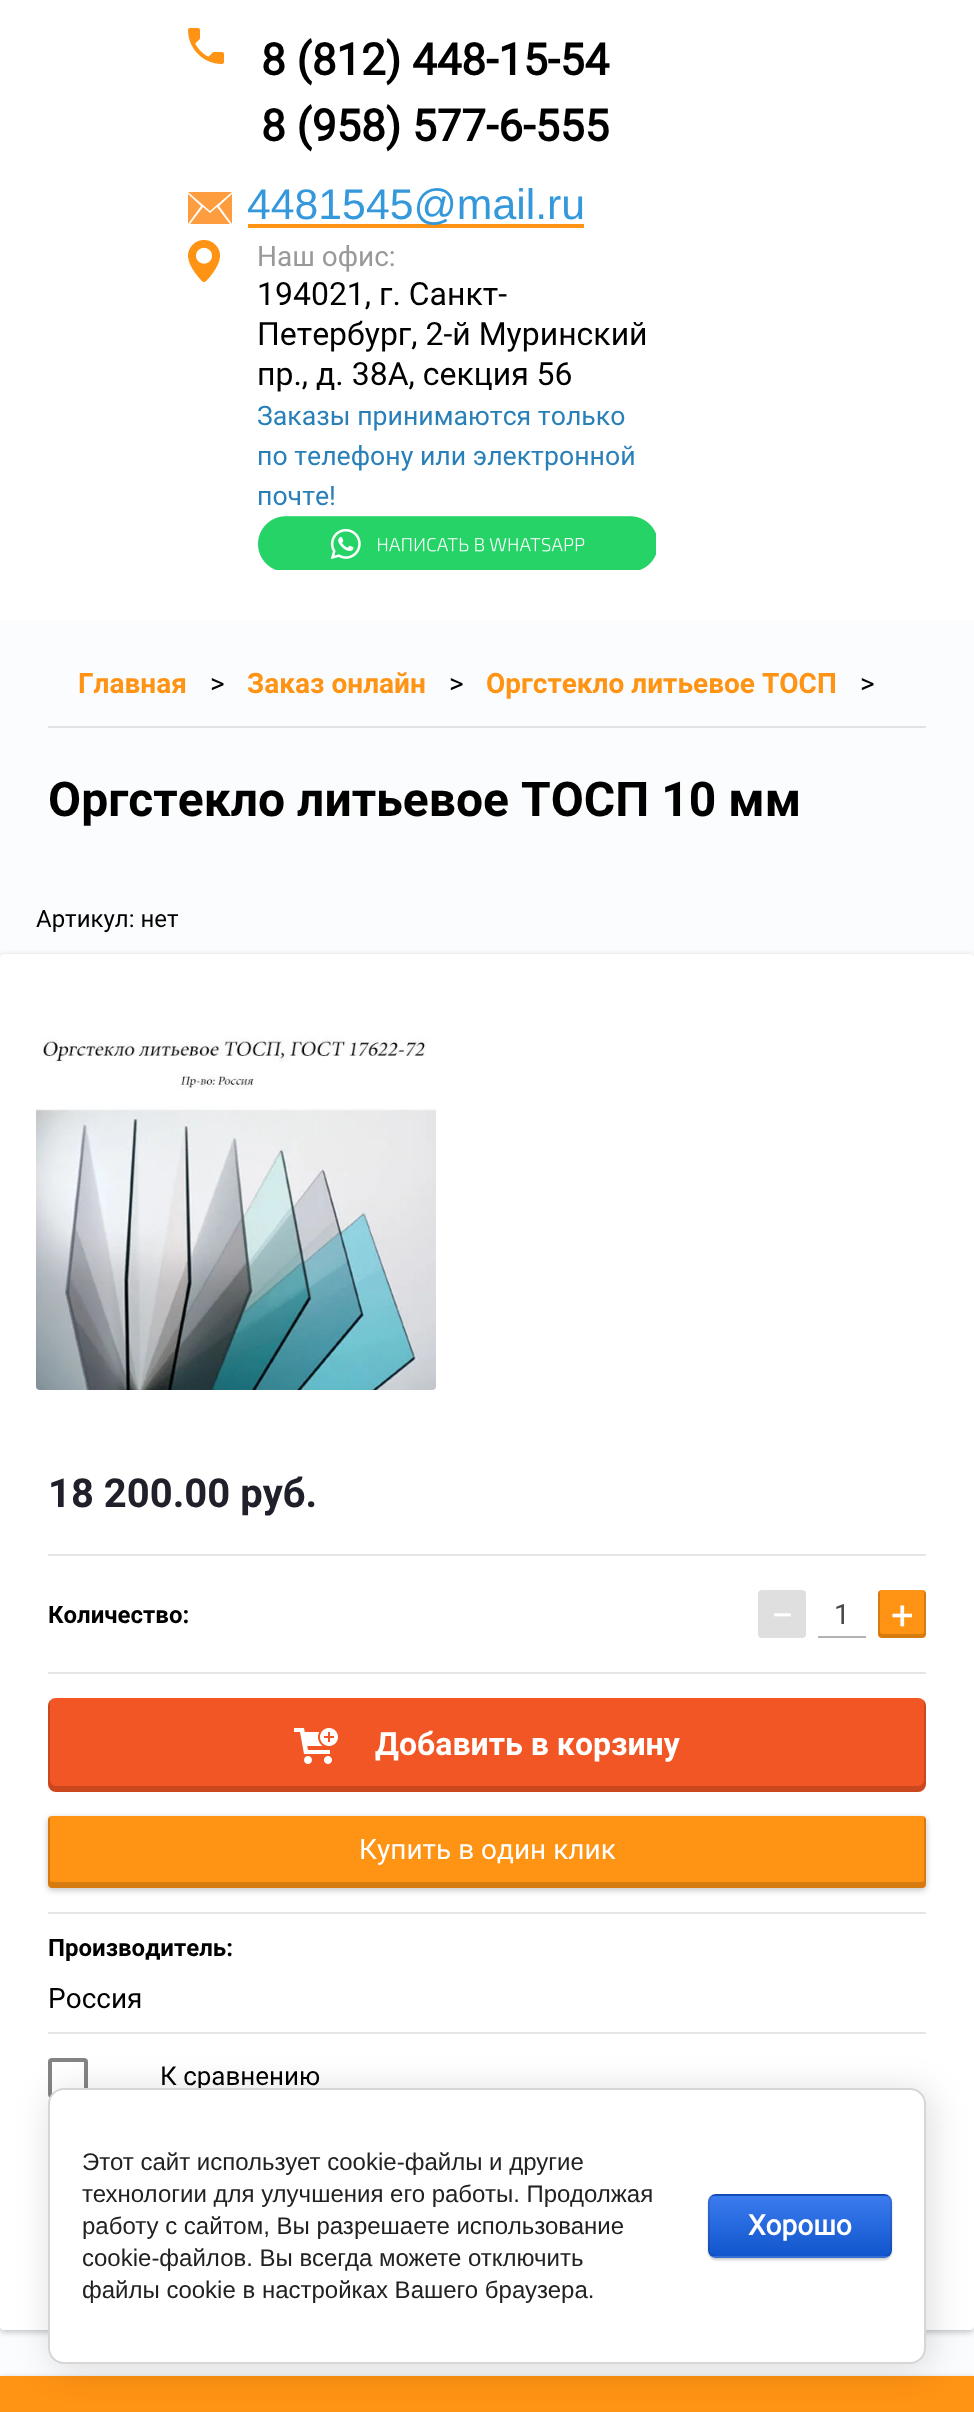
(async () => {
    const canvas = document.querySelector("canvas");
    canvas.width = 974;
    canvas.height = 2412;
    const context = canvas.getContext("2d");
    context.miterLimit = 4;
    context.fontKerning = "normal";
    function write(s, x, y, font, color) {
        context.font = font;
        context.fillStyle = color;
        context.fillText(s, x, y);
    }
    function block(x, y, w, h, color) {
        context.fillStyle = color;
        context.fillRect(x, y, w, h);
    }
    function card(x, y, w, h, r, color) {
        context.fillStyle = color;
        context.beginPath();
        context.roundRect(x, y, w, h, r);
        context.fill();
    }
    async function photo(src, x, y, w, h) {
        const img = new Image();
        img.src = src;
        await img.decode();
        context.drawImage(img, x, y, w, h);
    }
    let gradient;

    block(0, 0, 974, 2412, "rgb(254, 252, 248)");
    block(0, 0, 974, 620, "rgb(255, 255, 255)");
    await photo("media/1.png", 188, 28, 36, 36);
    write("8 (812) 448-15-54", 261, 75, "bold 44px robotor", "rgb(0, 0, 0)");
    write("8 (958) 577-6-555", 261, 141, "bold 44px robotor", "rgb(0, 0, 0)");
    context.fillStyle = "rgb(254, 157, 64)";
    context.beginPath();
    context.moveTo(219, 206);
    context.lineTo(232, 194);
    context.lineTo(232, 224);
    context.closePath();
    context.moveTo(188, 192);
    context.lineTo(232, 192);
    context.lineTo(210, 211);
    context.closePath();
    context.moveTo(188, 224);
    context.lineTo(188, 194);
    context.lineTo(201, 206);
    context.closePath();
    context.moveTo(210, 213);
    context.lineTo(217, 207);
    context.lineTo(230, 224);
    context.lineTo(190, 224);
    context.lineTo(203, 207);
    context.closePath();
    context.fill();
    block(248, 224, 336, 4, "rgb(255, 147, 20)");
    write("4481545@mail.ru", 247, 219, "42.75px Liberation Sans", "rgb(52, 152, 219)");
    await photo("media/2.png", 188, 240, 32, 42);
    write("Наш офис:", 257, 266, "28px robotor", "rgb(153, 153, 153)");
    write("194021, г. Санкт-", 257, 305, "32px robotor", "rgb(0, 0, 0)");
    write("Петербург, 2-й Муринский", 257, 345, "32px robotor", "rgb(0, 0, 0)");
    write("пр., д. 38А, секция 56", 257, 385, "32px robotor", "rgb(0, 0, 0)");
    write("Заказы принимаются только", 257, 425, "26.7px robotor", "rgb(41, 128, 185)");
    write("по телефону или электронной", 257, 465, "26.7px robotor", "rgb(41, 128, 185)");
    write("почте!", 257, 505, "26.7px robotor", "rgb(41, 128, 185)");
    await photo("media/3.png", 258, 516, 398, 54);
    card(0, 620, 974, 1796, 4, "rgb(251, 252, 253)");
    block(48, 726, 878, 2, "rgb(225, 226, 227)");
    write("Главная", 78, 693, "bold 28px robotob", "rgb(255, 147, 20)");
    write(">", 210, 693, "28px robotor", "rgb(0, 0, 0)");
    write("Заказ онлайн", 247, 693, "bold 28px robotob", "rgb(255, 147, 20)");
    write(">", 449, 693, "28px robotor", "rgb(0, 0, 0)");
    write("Оргстекло литьевое ТОСП", 486, 693, "bold 28px robotob", "rgb(255, 147, 20)");
    write(">", 860, 693, "28px robotor", "rgb(0, 0, 0)");
    write("Оргстекло литьевое ТОСП 10 мм", 48, 816, "bold 48px robotob", "rgb(0, 0, 0)");
    write("Артикул: нет", 36, 927, "24px robotor", "rgb(0, 0, 0)");
    context.fillStyle = "rgba(0, 0, 0, 0.24)";
    context.filter = "blur(3px)";
    context.beginPath();
    context.roundRect(0, 956, 974, 1376, 4);
    context.fill();
    context.filter = "none";
    card(0, 954, 974, 1376, 4, "rgb(255, 255, 255)");
    await photo("media/4.png", 36, 1037, 400, 353);
    write("18 200.00 руб.", 48, 1507, "bold 40px robotob", "rgb(32, 32, 42)");
    block(48, 1554, 878, 2, "rgb(229, 229, 229)");
    block(48, 1672, 878, 2, "rgb(229, 229, 229)");
    write("Количество:", 48, 1623, "bold 24px robotob", "rgb(0, 0, 0)");
    card(758, 1590, 48, 48, 4, "rgb(223, 223, 223)");
    write("−", 771, 1629, "40px robotor", "rgb(255, 255, 255)");
    block(818, 1636, 48, 2, "rgb(178, 178, 178)");
    write("1", 834, 1624, "28px robotor", "rgb(72, 72, 72)");
    card(878, 1590, 48, 48, 4, "rgb(255, 147, 20)");
    context.fillStyle = "rgba(0, 0, 0, 0.16)";
    context.beginPath();
    context.moveTo(882, 1590);
    context.bezierCurveTo(880, 1590, 878, 1592, 878, 1594);
    context.lineTo(878, 1634);
    context.bezierCurveTo(878, 1636, 880, 1638, 882, 1638);
    context.lineTo(922, 1638);
    context.bezierCurveTo(924, 1638, 926, 1636, 926, 1634);
    context.lineTo(926, 1594);
    context.bezierCurveTo(926, 1592, 924, 1590, 922, 1590);
    context.bezierCurveTo(923, 1590, 924, 1591, 924, 1592);
    context.lineTo(924, 1632);
    context.bezierCurveTo(924, 1633, 923, 1634, 922, 1634);
    context.lineTo(882, 1634);
    context.bezierCurveTo(881, 1634, 880, 1633, 880, 1632);
    context.lineTo(880, 1592);
    context.bezierCurveTo(880, 1591, 881, 1590, 882, 1590);
    context.closePath();
    context.fill();
    write("+", 891, 1629, "40px robotor", "rgb(255, 255, 255)");
    card(48, 1698, 878, 94, 8, "rgb(242, 86, 37)");
    context.fillStyle = "rgba(0, 0, 0, 0.16)";
    context.beginPath();
    context.moveTo(50, 1700);
    context.bezierCurveTo(49, 1702, 48, 1704, 48, 1706);
    context.lineTo(48, 1784);
    context.bezierCurveTo(48, 1788, 52, 1792, 56, 1792);
    context.lineTo(918, 1792);
    context.bezierCurveTo(922, 1792, 926, 1788, 926, 1784);
    context.lineTo(926, 1706);
    context.bezierCurveTo(926, 1704, 925, 1702, 924, 1700);
    context.lineTo(924, 1780);
    context.bezierCurveTo(924, 1783, 921, 1786, 918, 1786);
    context.lineTo(56, 1786);
    context.bezierCurveTo(53, 1786, 50, 1783, 50, 1780);
    context.closePath();
    context.fill();
    await photo("media/5.png", 294, 1728, 44, 36);
    write("Добавить в корзину", 375, 1755, "bold 32px robotob", "rgb(255, 255, 255)");
    context.fillStyle = "rgba(0, 0, 0, 0.24)";
    context.filter = "blur(3px)";
    context.beginPath();
    context.roundRect(48, 1818, 878, 72, 4);
    context.fill();
    context.filter = "none";
    card(48, 1816, 878, 72, 4, "rgb(255, 147, 20)");
    context.fillStyle = "rgba(0, 0, 0, 0.16)";
    context.beginPath();
    context.moveTo(50, 1817);
    context.bezierCurveTo(49, 1817, 48, 1819, 48, 1820);
    context.lineTo(48, 1884);
    context.bezierCurveTo(48, 1886, 50, 1888, 52, 1888);
    context.lineTo(922, 1888);
    context.bezierCurveTo(924, 1888, 926, 1886, 926, 1884);
    context.lineTo(926, 1820);
    context.bezierCurveTo(926, 1819, 925, 1817, 924, 1817);
    context.lineTo(924, 1880);
    context.bezierCurveTo(924, 1881, 923, 1882, 922, 1882);
    context.lineTo(52, 1882);
    context.bezierCurveTo(51, 1882, 50, 1881, 50, 1880);
    context.closePath();
    context.fill();
    write("Купить в один клик", 359, 1859, "28px robotor", "rgb(255, 255, 255)");
    block(48, 1912, 878, 2, "rgb(229, 229, 229)");
    block(48, 2032, 878, 2, "rgb(229, 229, 229)");
    write("Производитель:", 48, 1956, "bold 24px robotob", "rgb(0, 0, 0)");
    write("Россия", 48, 2008, "28px robotor", "rgb(0, 0, 0)");
    context.beginPath();
    context.roundRect(50, 2060, 36, 36, 2);
    context.strokeStyle = "rgb(132, 132, 132)";
    context.lineWidth = 4;
    context.stroke();
    write("К сравнению", 160, 2085, "26px robotor", "rgb(0, 0, 0)");
    context.fillStyle = "rgba(0, 0, 0, 0.24)";
    context.filter = "blur(3px)";
    context.beginPath();
    context.rect(0, 2378, 974, 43);
    context.fill();
    context.filter = "none";
    block(0, 2376, 974, 36, "rgb(255, 147, 20)");
    context.fillStyle = "rgba(0, 0, 0, 0.14)";
    context.filter = "blur(18px)";
    context.beginPath();
    context.roundRect(52, 2092, 878, 276, 16);
    context.fill();
    context.filter = "none";
    context.fillStyle = "rgb(255, 255, 255)";
    context.beginPath();
    context.roundRect(49, 2089, 876, 274, 15);
    context.fill();
    context.strokeStyle = "rgb(214, 214, 214)";
    context.lineWidth = 2;
    context.stroke();
    write("Этот сайт использует cookie-файлы и другие", 82, 2170, "24px Liberation Sans", "rgb(33, 33, 33)");
    write("технологии для улучшения его работы. Продолжая", 82, 2202, "24px Liberation Sans", "rgb(33, 33, 33)");
    write("работу с сайтом, Вы разрешаете использование", 82, 2234, "24px Liberation Sans", "rgb(33, 33, 33)");
    write("cookie-файлов. Вы всегда можете отключить", 82, 2266, "24px Liberation Sans", "rgb(33, 33, 33)");
    write("файлы cookie в настройках Вашего браузера.", 82, 2298, "24px Liberation Sans", "rgb(33, 33, 33)");
    context.fillStyle = "rgba(0, 0, 0, 0.2)";
    context.filter = "blur(1px)";
    context.beginPath();
    context.roundRect(708, 2196, 184, 64, 8);
    context.fill();
    context.filter = "none";
    context.save();
    context.beginPath();
    context.roundRect(708, 2194, 184, 64, 8);
    context.clip();
    gradient = context.createLinearGradient(800, 2136, 800, 2196);
    gradient.addColorStop(0, "rgb(59, 124, 239)");
    gradient.addColorStop(1, "rgb(17, 85, 204)");
    context.fillStyle = gradient;
    context.fillRect(708, 2194, 184, 2);
    gradient = context.createLinearGradient(800, 2196, 800, 2256);
    gradient.addColorStop(0, "rgb(59, 124, 239)");
    gradient.addColorStop(1, "rgb(17, 85, 204)");
    context.fillStyle = gradient;
    context.fillRect(708, 2196, 184, 60);
    gradient = context.createLinearGradient(800, 2256, 800, 2316);
    gradient.addColorStop(0, "rgb(59, 124, 239)");
    gradient.addColorStop(1, "rgb(17, 85, 204)");
    context.fillStyle = gradient;
    context.fillRect(708, 2256, 184, 2);
    context.restore();
    context.beginPath();
    context.roundRect(709, 2195, 182, 62, 7);
    context.strokeStyle = "rgba(0, 0, 0, 0.1)";
    context.stroke();
    write("Хорошо", 748, 2235, "bold 28px robotor", "rgb(255, 255, 255)");
})();
